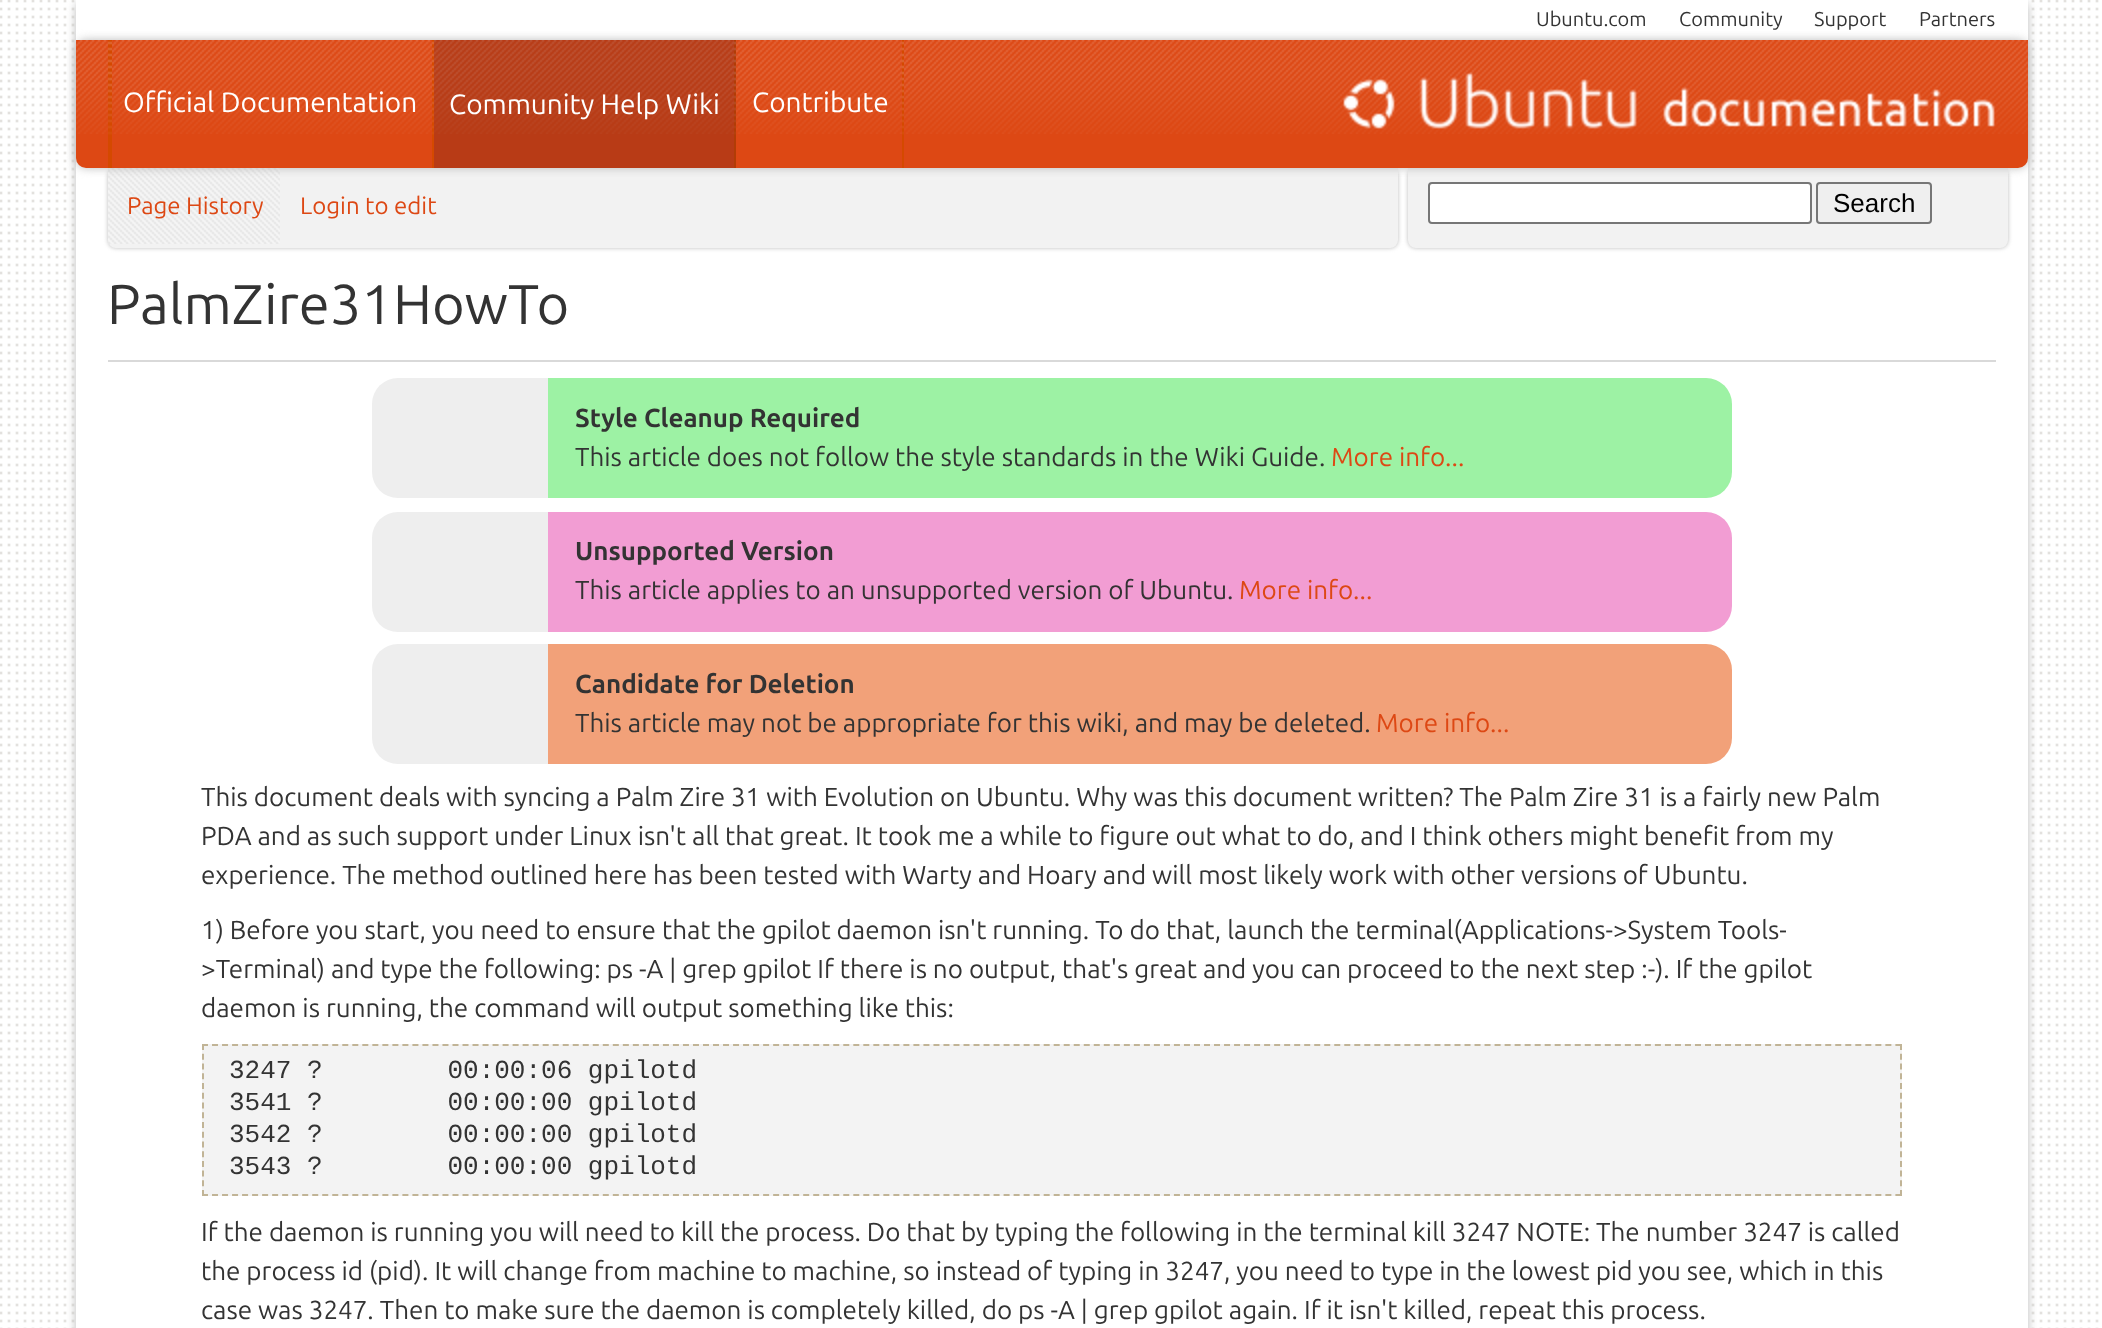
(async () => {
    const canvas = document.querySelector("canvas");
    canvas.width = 2102;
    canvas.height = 1328;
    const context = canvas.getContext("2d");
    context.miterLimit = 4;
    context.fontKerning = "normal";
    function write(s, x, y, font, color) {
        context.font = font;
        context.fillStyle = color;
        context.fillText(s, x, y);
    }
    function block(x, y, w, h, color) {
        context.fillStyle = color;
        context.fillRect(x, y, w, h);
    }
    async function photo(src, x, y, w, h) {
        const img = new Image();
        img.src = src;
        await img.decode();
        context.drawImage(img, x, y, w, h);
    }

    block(0, 0, 2102, 1328, "rgb(255, 255, 255)");
    await photo("media/1.png", 0, 0, 2099, 1328);
    context.fillStyle = "rgb(187, 187, 187)";
    context.filter = "blur(5px)";
    context.beginPath();
    context.roundRect(76, 0, 1952, 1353, 10);
    context.fill();
    context.filter = "none";
    block(76, 0, 1952, 1328, "rgb(255, 255, 255)");
    write("Ubuntu.com", 1536, 26, "20px Ubuntu", "rgb(51, 51, 51)");
    write("Community", 1679, 26, "20px Ubuntu", "rgb(51, 51, 51)");
    write("Support", 1814, 26, "20px Ubuntu", "rgb(51, 51, 51)");
    write("Partners", 1919, 26, "20px Ubuntu", "rgb(51, 51, 51)");
    context.fillStyle = "rgb(187, 187, 187)";
    context.filter = "blur(2px)";
    context.beginPath();
    context.roundRect(108, 168, 1290, 80, 8);
    context.fill();
    context.filter = "none";
    context.fillStyle = "rgb(242, 242, 242)";
    context.beginPath();
    context.roundRect(108, 168, 1290, 80, [0, 0, 8, 8]);
    context.fill();
    await photo("media/6.png", 108, 168, 172, 76);
    context.fillStyle = "rgb(187, 187, 187)";
    context.filter = "blur(2px)";
    context.beginPath();
    context.roundRect(1408, 168, 600, 80, 8);
    context.fill();
    context.filter = "none";
    context.fillStyle = "rgb(242, 242, 242)";
    context.beginPath();
    context.roundRect(1408, 168, 600, 80, [0, 0, 8, 8]);
    context.fill();
    context.fillStyle = "rgb(255, 255, 255)";
    context.beginPath();
    context.roundRect(1429, 183, 382, 40, 3);
    context.fill();
    context.strokeStyle = "rgb(118, 118, 118)";
    context.lineWidth = 2;
    context.stroke();
    context.fillStyle = "rgb(239, 239, 239)";
    context.beginPath();
    context.roundRect(1817, 183, 114, 40, 3);
    context.fill();
    context.stroke();
    context.fillStyle = "rgb(187, 187, 187)";
    context.filter = "blur(5px)";
    context.beginPath();
    context.roundRect(76, 40, 1952, 128, 10);
    context.fill();
    context.filter = "none";
    context.fillStyle = "rgb(221, 72, 20)";
    context.beginPath();
    context.roundRect(76, 40, 1952, 128, [0, 0, 10, 10]);
    context.fill();
    await photo("media/2.png", 76, 40, 1952, 94);
    await photo("media/3.png", 108, 40, 4, 128);
    await photo("media/4.png", 432, 40, 2, 128);
    write("Official Documentation", 123, 112, "28px Ubuntu", "rgb(255, 255, 255)");
    await photo("media/4.png", 734, 40, 2, 128);
    block(434, 40, 302, 128, "rgba(40, 10, 30, 0.2)");
    write("Community Help Wiki", 449, 114, "28px Ubuntu", "rgb(255, 255, 255)");
    await photo("media/4.png", 902, 40, 2, 128);
    write("Contribute", 752, 112, "28px Ubuntu", "rgb(255, 255, 255)");
    await photo("media/5.png", 1343, 72, 652, 57);
    write("Page History", 127, 214, "24px Ubuntu", "rgb(221, 72, 20)");
    write("Login to edit", 300, 214, "24px Ubuntu", "rgb(221, 72, 20)");
    write("Search", 1833, 212, "26px Liberation Sans", "rgb(0, 0, 0)");
    write("PalmZire31HowTo", 107, 324, "56px Ubuntu", "rgb(51, 51, 51)");
    block(108, 360, 1888, 2, "rgb(217, 217, 217)");
    context.fillStyle = "rgb(238, 238, 238)";
    context.beginPath();
    context.roundRect(372, 378, 176, 120, [26, 0, 0, 26]);
    context.fill();
    context.fillStyle = "rgb(157, 242, 164)";
    context.beginPath();
    context.roundRect(548, 378, 1184, 120, [0, 26, 26, 0]);
    context.fill();
    write("Style Cleanup Required", 575, 427, "bold 26px Ubuntu", "rgb(51, 51, 51)");
    write("This article does not follow the style standards in the Wiki Guide.", 575, 466, "26px Ubuntu", "rgb(51, 51, 51)");
    write("More info...", 1331, 466, "26px Ubuntu", "rgb(221, 72, 20)");
    context.fillStyle = "rgb(238, 238, 238)";
    context.beginPath();
    context.roundRect(372, 512, 176, 120, [26, 0, 0, 26]);
    context.fill();
    context.fillStyle = "rgb(242, 157, 211)";
    context.beginPath();
    context.roundRect(548, 512, 1184, 120, [0, 26, 26, 0]);
    context.fill();
    write("Unsupported Version", 575, 560, "bold 26px Ubuntu", "rgb(51, 51, 51)");
    write("This article applies to an unsupported version of Ubuntu.", 575, 599, "26px Ubuntu", "rgb(51, 51, 51)");
    write("More info...", 1239, 599, "26px Ubuntu", "rgb(221, 72, 20)");
    context.fillStyle = "rgb(238, 238, 238)";
    context.beginPath();
    context.roundRect(372, 644, 176, 120, [26, 0, 0, 26]);
    context.fill();
    context.fillStyle = "rgb(242, 161, 121)";
    context.beginPath();
    context.roundRect(548, 644, 1184, 120, [0, 26, 26, 0]);
    context.fill();
    write("Candidate for Deletion", 575, 693, "bold 26px Ubuntu", "rgb(51, 51, 51)");
    write("This article may not be appropriate for this wiki, and may be deleted.", 575, 732, "26px Ubuntu", "rgb(51, 51, 51)");
    write("More info...", 1376, 732, "26px Ubuntu", "rgb(221, 72, 20)");
    write("This document deals with syncing a Palm Zire 31 with Evolution on Ubuntu. Why was this document written? The Palm Zire 31 is a fairly new Palm", 201, 806, "26px Ubuntu", "rgb(51, 51, 51)");
    write("PDA and as such support under Linux isn't all that great. It took me a while to figure out what to do, and I think others might benefit from my", 201, 845, "26px Ubuntu", "rgb(51, 51, 51)");
    write("experience. The method outlined here has been tested with Warty and Hoary and will most likely work with other versions of Ubuntu.", 201, 884, "26px Ubuntu", "rgb(51, 51, 51)");
    write("1) Before you start, you need to ensure that the gpilot daemon isn't running. To do that, launch the terminal(Applications->System Tools-", 201, 939, "26px Ubuntu", "rgb(51, 51, 51)");
    write(">Terminal) and type the following: ps -A | grep gpilot If there is no output, that's great and you can proceed to the next step :-). If the gpilot", 201, 978, "26px Ubuntu", "rgb(51, 51, 51)");
    write("daemon is running, the command will output something like this:", 201, 1017, "26px Ubuntu", "rgb(51, 51, 51)");
    block(202, 1044, 1700, 152, "rgb(243, 243, 243)");
    context.beginPath();
    context.moveTo(202, 1045);
    context.lineTo(1902, 1045);
    context.strokeStyle = "rgb(193, 180, 150)";
    context.setLineDash([6, 4.02]);
    context.stroke();
    context.beginPath();
    context.moveTo(1901, 1044);
    context.lineTo(1901, 1196);
    context.setLineDash([6, 3.74]);
    context.stroke();
    context.beginPath();
    context.moveTo(202, 1195);
    context.lineTo(1902, 1195);
    context.setLineDash([6, 4.02]);
    context.stroke();
    context.beginPath();
    context.moveTo(203, 1044);
    context.lineTo(203, 1196);
    context.setLineDash([6, 3.74]);
    context.stroke();
    write("3247 ?        00:00:06 gpilotd", 229, 1078, "26px Liberation Mono", "rgb(51, 51, 51)");
    write("3541 ?        00:00:00 gpilotd", 229, 1110, "26px Liberation Mono", "rgb(51, 51, 51)");
    write("3542 ?        00:00:00 gpilotd", 229, 1142, "26px Liberation Mono", "rgb(51, 51, 51)");
    write("3543 ?        00:00:00 gpilotd", 229, 1174, "26px Liberation Mono", "rgb(51, 51, 51)");
    write("If the daemon is running you will need to kill the process. Do that by typing the following in the terminal kill 3247 NOTE: The number 3247 is called", 201, 1241, "26px Ubuntu", "rgb(51, 51, 51)");
    write("the process id (pid). It will change from machine to machine, so instead of typing in 3247, you need to type in the lowest pid you see, which in this", 201, 1280, "26px Ubuntu", "rgb(51, 51, 51)");
    write("case was 3247. Then to make sure the daemon is completely killed, do ps -A | grep gpilot again. If it isn't killed, repeat this process.", 201, 1319, "26px Ubuntu", "rgb(51, 51, 51)");
})();
